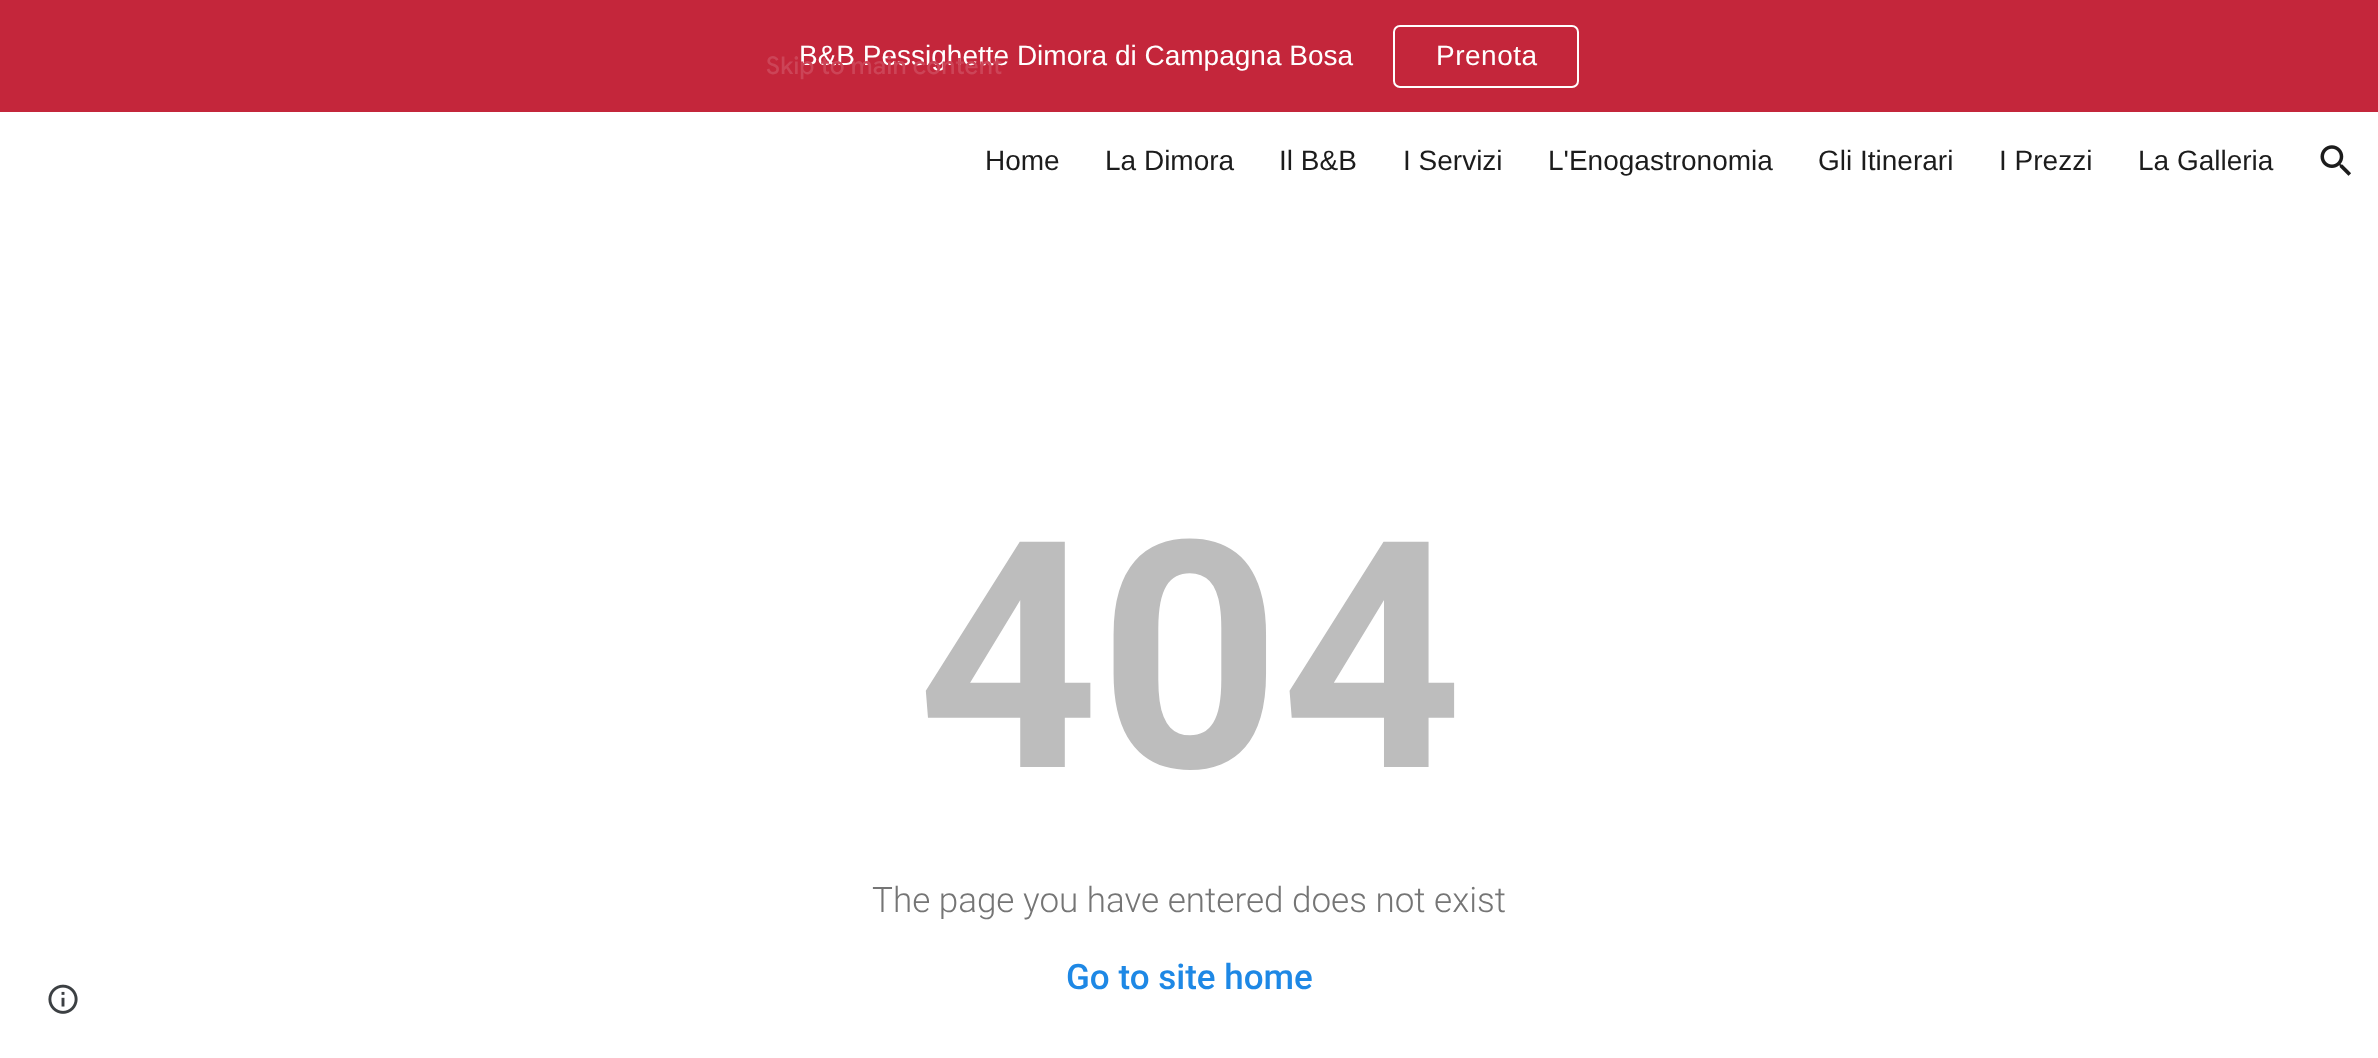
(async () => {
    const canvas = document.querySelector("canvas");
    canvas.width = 2378;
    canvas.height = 1058;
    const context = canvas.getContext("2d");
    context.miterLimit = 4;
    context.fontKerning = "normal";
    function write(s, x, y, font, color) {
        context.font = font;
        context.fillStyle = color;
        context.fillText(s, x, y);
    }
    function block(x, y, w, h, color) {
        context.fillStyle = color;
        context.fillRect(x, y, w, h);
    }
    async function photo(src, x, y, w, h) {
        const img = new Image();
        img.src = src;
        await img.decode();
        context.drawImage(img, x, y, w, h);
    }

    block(0, 0, 2378, 1058, "rgb(255, 255, 255)");
    block(0, 0, 2378, 112, "rgb(196, 38, 59)");
    write("B&B Pessighette Dimora di Campagna Bosa", 799, 65, "28px Liberation Sans", "rgb(255, 255, 255)");
    context.beginPath();
    context.roundRect(1394, 26, 184, 61, 6);
    context.strokeStyle = "rgb(255, 255, 255)";
    context.lineWidth = 2;
    context.stroke();
    context.letterSpacing = "0.5px";
    write("Prenota", 1436, 65, "28px Liberation Sans", "rgb(255, 255, 255)");
    context.letterSpacing = "0px";
    write("Home", 985, 170, "28px Liberation Sans", "rgb(28, 28, 28)");
    write("La Dimora", 1105, 170, "28px Liberation Sans", "rgb(28, 28, 28)");
    write("Il B&B", 1279, 170, "28px Liberation Sans", "rgb(28, 28, 28)");
    write("I Servizi", 1403, 170, "28px Liberation Sans", "rgb(28, 28, 28)");
    write("L'Enogastronomia", 1548, 170, "28px Liberation Sans", "rgb(28, 28, 28)");
    write("Gli Itinerari", 1818, 170, "28px Liberation Sans", "rgb(28, 28, 28)");
    write("I Prezzi", 1999, 170, "28px Liberation Sans", "rgb(28, 28, 28)");
    write("La Galleria", 2138, 170, "28px Liberation Sans", "rgb(28, 28, 28)");
    await photo("media/1.png", 2320, 145, 31, 31);
    write("404", 917, 767, "bold 317px Roboto", "rgb(189, 189, 189)");
    write("The page you have entered does not exist", 872, 912, "300 35px Roboto", "rgb(117, 117, 117)");
    write("Go to site home", 1066, 989, "500 35px Roboto", "rgb(30, 136, 229)");
    await photo("media/2.png", 48, 984, 30, 30);
    context.letterSpacing = "0.25px";
    write("Skip to main content", 766, 74, "500 24.5px Google Sans", "rgb(204, 68, 87)");
})();
